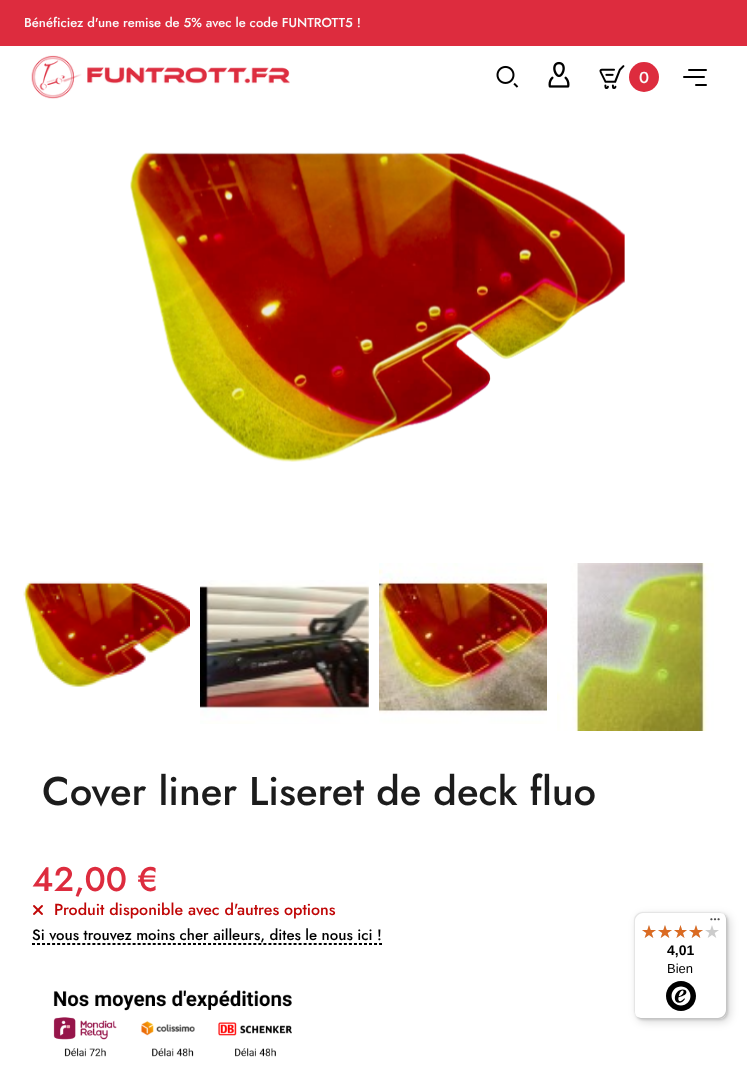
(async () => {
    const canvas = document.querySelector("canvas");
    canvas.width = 747;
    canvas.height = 1073;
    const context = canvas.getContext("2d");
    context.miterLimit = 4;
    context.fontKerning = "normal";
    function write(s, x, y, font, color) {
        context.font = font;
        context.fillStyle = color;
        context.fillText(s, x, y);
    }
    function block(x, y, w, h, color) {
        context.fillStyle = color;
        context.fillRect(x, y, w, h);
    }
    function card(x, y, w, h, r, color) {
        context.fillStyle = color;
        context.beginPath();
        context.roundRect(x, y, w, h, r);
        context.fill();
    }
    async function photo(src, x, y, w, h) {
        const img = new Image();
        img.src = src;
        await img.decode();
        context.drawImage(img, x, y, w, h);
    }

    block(0, 0, 747, 1073, "rgb(255, 255, 255)");
    block(0, 0, 747, 46, "rgb(221, 44, 62)");
    write("Bénéficiez d'une remise de 5% avec le code FUNTROTT5 !", 24, 27, "500 13px Jost", "rgb(250, 250, 250)");
    await photo("media/1.png", 31, 55, 259, 44);
    await photo("media/2.png", 496, 65, 23, 23);
    await photo("media/3.png", 548, 61, 22, 27);
    await photo("media/4.png", 599, 65, 26, 24);
    context.fillStyle = "rgb(221, 44, 62)";
    context.beginPath();
    context.arc(644, 77, 15, 0, Math.PI * 2);
    context.fill();
    write("0", 639, 83, "500 16px Jost", "rgb(250, 250, 250)");
    card(688, 69, 19, 2, 1, "rgb(0, 0, 0)");
    card(683, 76, 22, 2, 1, "rgb(0, 0, 0)");
    card(695, 84, 12, 2, 1, "rgb(0, 0, 0)");
    await photo("media/5.png", 130, 152, 495, 310);
    await photo("media/6.png", 23, 581, 167, 106);
    await photo("media/7.png", 200, 580, 169, 144);
    await photo("media/8.png", 379, 563, 168, 161);
    await photo("media/9.png", 557, 563, 157, 168);
    write("Cover liner Liseret de deck fluo", 42, 805, "500 40px Jost", "rgb(28, 28, 28)");
    write("42,00 €", 32, 891, "500 34px Jost", "rgb(221, 44, 62)");
    await photo("media/10.png", 33, 905, 10, 10);
    write("Produit disponible avec d'autres options", 54, 915, "500 16px Jost", "rgb(192, 6, 6)");
    context.beginPath();
    context.moveTo(32, 944.5);
    context.lineTo(382, 944.5);
    context.strokeStyle = "rgb(0, 0, 0)";
    context.setLineDash([3, 2.03]);
    context.stroke();
    context.beginPath();
    context.moveTo(32, 943.5);
    context.lineTo(382, 943.5);
    context.stroke();
    write("Si vous trouvez moins cher ailleurs, dites le nous ici !", 32, 940, "500 15px Jost", "rgb(0, 0, 0)");
    await photo("media/11.png", 53, 990, 239, 67);
    context.fillStyle = "rgba(0, 0, 0, 0.15)";
    context.filter = "blur(4px)";
    context.beginPath();
    context.roundRect(637, 915, 93, 107, 8);
    context.fill();
    context.filter = "none";
    context.filter = "blur(1px)";
    context.beginPath();
    context.roundRect(635, 913, 93, 107, 8);
    context.fill();
    context.filter = "none";
    card(634, 912, 93, 107, 8, "rgb(255, 255, 255)");
    context.fillStyle = "rgb(229, 229, 229)";
    context.beginPath();
    context.moveTo(643, 913);
    context.lineTo(720, 913);
    context.bezierCurveTo(722, 913, 724, 914, 726, 916);
    context.bezierCurveTo(724, 914, 722, 912, 719, 912);
    context.lineTo(642, 912);
    context.bezierCurveTo(638, 912, 634, 916, 634, 920);
    context.lineTo(634, 1011);
    context.bezierCurveTo(634, 1014, 636, 1016, 638, 1018);
    context.bezierCurveTo(636, 1016, 635, 1014, 635, 1012);
    context.lineTo(635, 921);
    context.bezierCurveTo(635, 917, 639, 913, 643, 913);
    context.closePath();
    context.fill();
    context.fillStyle = "rgb(204, 204, 204)";
    context.beginPath();
    context.moveTo(635, 1015);
    context.bezierCurveTo(637, 1017, 639, 1019, 642, 1019);
    context.lineTo(719, 1019);
    context.bezierCurveTo(723, 1019, 727, 1015, 727, 1011);
    context.lineTo(727, 920);
    context.bezierCurveTo(727, 917, 725, 915, 723, 913);
    context.bezierCurveTo(725, 915, 726, 917, 726, 919);
    context.lineTo(726, 1010);
    context.bezierCurveTo(726, 1014, 722, 1018, 718, 1018);
    context.lineTo(641, 1018);
    context.bezierCurveTo(639, 1018, 637, 1017, 635, 1015);
    context.closePath();
    context.fill();
    context.fillStyle = "rgba(50, 50, 50, 0.2)";
    context.beginPath();
    context.moveTo(636, 1016);
    context.bezierCurveTo(637, 1018, 640, 1019, 642, 1019);
    context.lineTo(719, 1019);
    context.bezierCurveTo(723, 1019, 727, 1015, 727, 1011);
    context.lineTo(727, 920);
    context.bezierCurveTo(727, 918, 726, 915, 724, 914);
    context.bezierCurveTo(725, 915, 726, 917, 726, 919);
    context.lineTo(726, 1010);
    context.bezierCurveTo(726, 1015, 723, 1018, 718, 1018);
    context.lineTo(641, 1018);
    context.bezierCurveTo(639, 1018, 637, 1017, 636, 1016);
    context.closePath();
    context.fill();
    context.fillStyle = "rgba(255, 255, 255, 0.3)";
    context.beginPath();
    context.moveTo(726, 920);
    context.bezierCurveTo(726, 915, 723, 912, 718, 912);
    context.lineTo(719, 912);
    context.bezierCurveTo(723, 912, 727, 916, 727, 920);
    context.lineTo(727, 1011);
    context.bezierCurveTo(727, 1015, 723, 1019, 719, 1019);
    context.lineTo(642, 1019);
    context.bezierCurveTo(638, 1019, 634, 1015, 634, 1011);
    context.lineTo(634, 1010);
    context.bezierCurveTo(634, 1015, 637, 1018, 642, 1018);
    context.lineTo(718, 1018);
    context.bezierCurveTo(723, 1018, 726, 1015, 726, 1010);
    context.closePath();
    context.fill();
    await photo("media/12.png", 710, 918, 10, 3);
    await photo("media/13.png", 642, 925, 14, 13);
    await photo("media/13.png", 658, 925, 14, 13);
    await photo("media/14.png", 674, 925, 13, 13);
    await photo("media/13.png", 689, 925, 14, 13);
    await photo("media/13.png", 705, 925, 14, 13);
    await photo("media/15.png", 642, 925, 14, 13);
    await photo("media/15.png", 658, 925, 14, 13);
    await photo("media/16.png", 674, 925, 13, 13);
    await photo("media/15.png", 689, 925, 14, 13);
    write("4,01", 667, 955, "bold 14px Liberation Sans", "rgb(0, 0, 0)");
    write("Bien", 667, 973, "13px Liberation Sans", "rgb(0, 0, 0)");
    await photo("media/17.png", 666, 981, 30, 30);
})();
